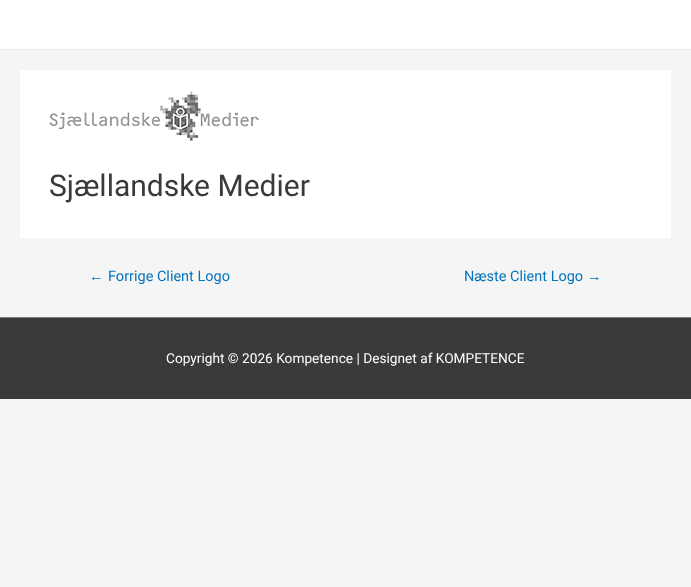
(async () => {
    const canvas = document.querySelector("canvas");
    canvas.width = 691;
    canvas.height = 587;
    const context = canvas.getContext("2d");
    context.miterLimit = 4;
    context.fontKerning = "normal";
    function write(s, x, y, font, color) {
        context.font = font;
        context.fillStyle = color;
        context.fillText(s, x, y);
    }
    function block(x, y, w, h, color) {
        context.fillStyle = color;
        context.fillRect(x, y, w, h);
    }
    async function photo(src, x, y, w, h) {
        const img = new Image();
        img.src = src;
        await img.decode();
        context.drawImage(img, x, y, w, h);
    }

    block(0, 0, 691, 587, "rgb(245, 245, 245)");
    block(0, 0, 691, 49, "rgb(255, 255, 255)");
    block(0, 49, 691, 1, "rgb(234, 234, 234)");
    block(20, 70, 651, 168, "rgb(255, 255, 255)");
    await photo("media/1.png", 49, 91, 210, 50);
    write("Sjællandske Medier", 49, 196, "30px Roboto", "rgb(58, 58, 58)");
    write("←", 89, 281, "14.5px Liberation Sans", "rgb(2, 116, 190)");
    write("Forrige Client Logo", 108, 281, "14.5px Roboto", "rgb(2, 116, 190)");
    write("Næste Client Logo", 464, 281, "14.5px Roboto", "rgb(2, 116, 190)");
    write("→", 587, 281, "14.5px Liberation Sans", "rgb(2, 116, 190)");
    block(0, 317, 691, 1, "rgb(122, 122, 122)");
    block(0, 318, 691, 81, "rgb(58, 58, 58)");
    write("Copyright © 2026 Kompetence | Designet af KOMPETENCE", 166, 363, "13.7px Roboto", "rgb(255, 255, 255)");
})();
